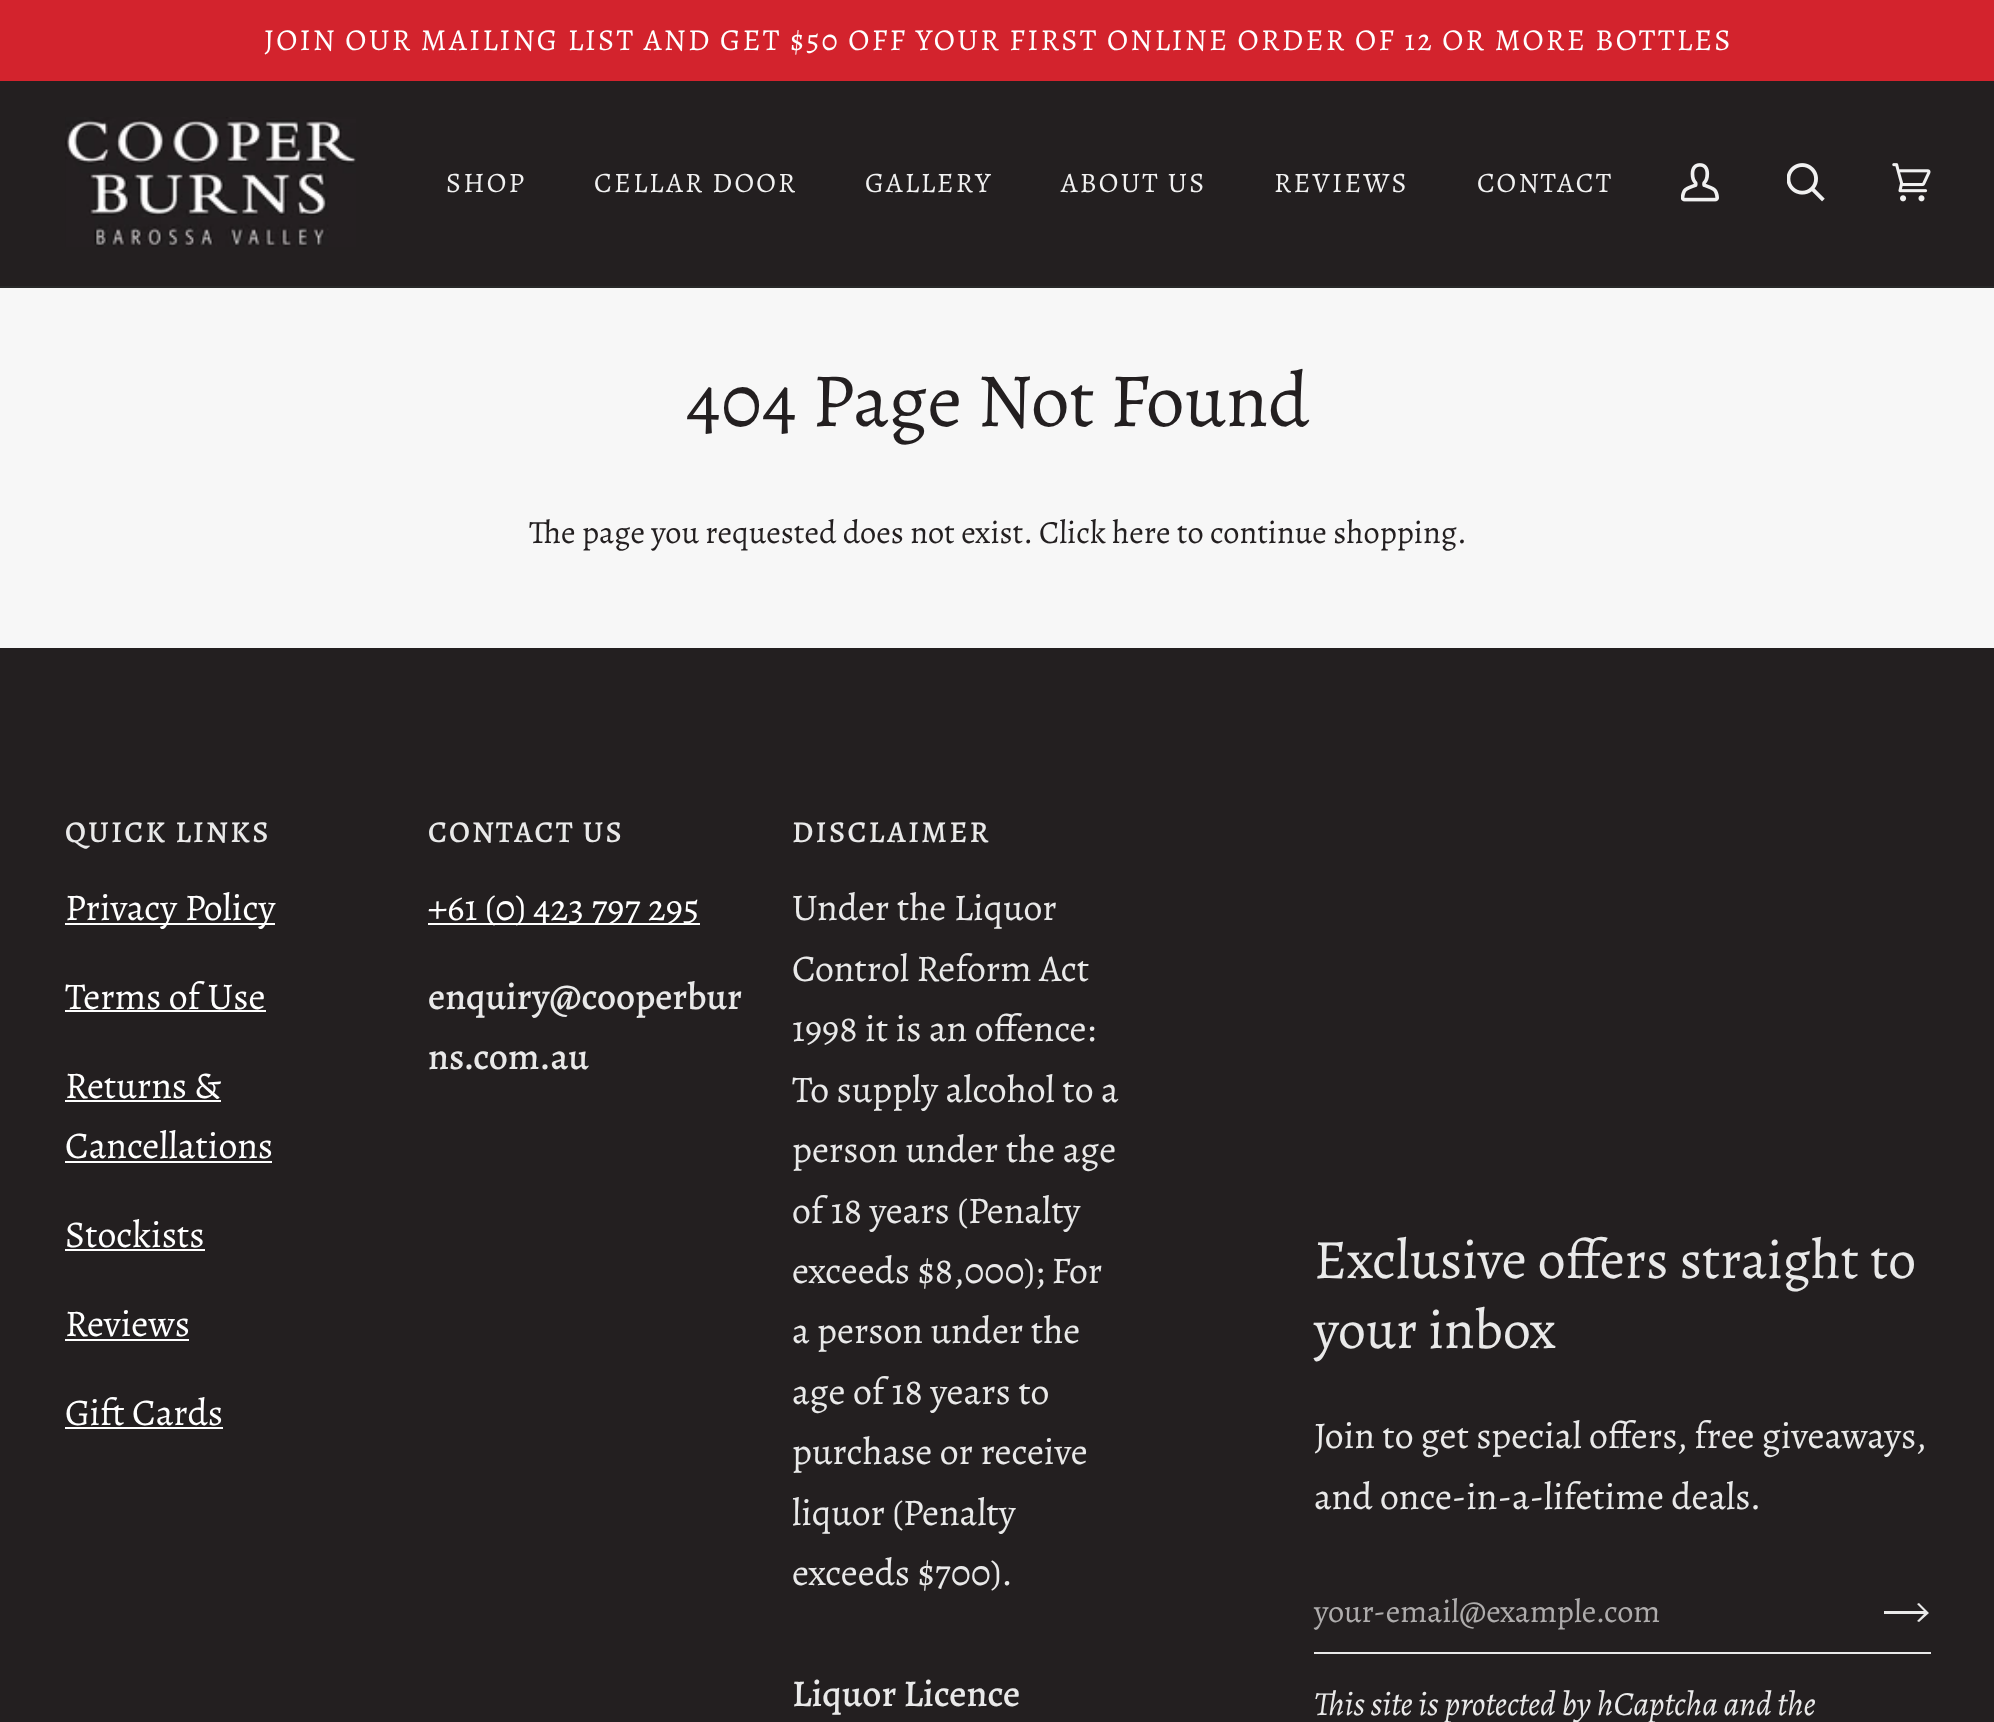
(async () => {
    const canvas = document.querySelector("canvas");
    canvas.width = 1994;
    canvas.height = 1722;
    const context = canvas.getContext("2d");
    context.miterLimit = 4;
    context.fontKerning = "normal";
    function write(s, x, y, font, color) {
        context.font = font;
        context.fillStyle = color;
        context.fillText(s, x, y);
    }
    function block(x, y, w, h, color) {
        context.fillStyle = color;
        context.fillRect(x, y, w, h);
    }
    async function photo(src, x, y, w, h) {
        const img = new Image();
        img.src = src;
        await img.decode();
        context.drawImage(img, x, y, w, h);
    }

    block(0, 0, 1994, 1722, "rgb(247, 247, 247)");
    block(0, 0, 1994, 81, "rgb(211, 35, 45)");
    context.letterSpacing = "2.25px";
    write("JOIN OUR MAILING LIST AND GET $50 OFF YOUR FIRST ONLINE ORDER OF 12 OR MORE BOTTLES", 264, 50, "30.5px Alegreya", "rgb(255, 255, 255)");
    block(0, 81, 1994, 205, "rgb(35, 31, 32)");
    block(0, 286, 1994, 2, "rgb(40, 40, 40)");
    await photo("media/1.png", 65, 117, 291, 130);
    write("SHOP", 446, 192, "28.25px Alegreya", "rgb(241, 241, 241)");
    write("CELLAR DOOR", 594, 192, "28.25px Alegreya", "rgb(241, 241, 241)");
    write("GALLERY", 865, 192, "28.25px Alegreya", "rgb(241, 241, 241)");
    write("ABOUT US", 1061, 192, "28.25px Alegreya", "rgb(241, 241, 241)");
    write("REVIEWS", 1274, 192, "28.25px Alegreya", "rgb(241, 241, 241)");
    write("CONTACT", 1477, 192, "28.25px Alegreya", "rgb(241, 241, 241)");
    await photo("media/2.png", 1681, 163, 38, 39);
    await photo("media/3.png", 1787, 163, 38, 39);
    await photo("media/4.png", 1892, 163, 39, 39);
    context.letterSpacing = "0px";
    write("404 Page Not Found", 686, 426, "77px Alegreya", "rgb(35, 31, 32)");
    write("The page you requested does not exist. Click", 529, 543, "32.4px Alegreya", "rgb(35, 31, 32)");
    write("here to continue shopping.", 1112, 543, "32.4px Alegreya", "rgb(35, 31, 32)");
    block(0, 648, 1994, 1074, "rgb(35, 31, 32)");
    context.letterSpacing = "2.25px";
    write("QUICK LINKS", 65, 842, "500 30.5px Alegreya", "rgb(233, 233, 233)");
    block(65, 923, 210, 2, "rgb(255, 255, 255)");
    context.letterSpacing = "0px";
    write("Privacy Policy", 65, 920, "37.75px Alegreya", "rgb(255, 255, 255)");
    write("Terms of Use", 65, 1009, "37.75px Alegreya", "rgb(255, 255, 255)");
    block(65, 1010, 201, 2, "rgb(255, 255, 255)");
    write("Returns &", 65, 1098, "37.75px Alegreya", "rgb(255, 255, 255)");
    block(65, 1100, 156, 2, "rgb(255, 255, 255)");
    write("Cancellations", 65, 1158, "37.75px Alegreya", "rgb(255, 255, 255)");
    block(65, 1161, 207, 2, "rgb(255, 255, 255)");
    write("Stockists", 65, 1247, "37.75px Alegreya", "rgb(255, 255, 255)");
    block(65, 1249, 140, 2, "rgb(255, 255, 255)");
    write("Reviews", 65, 1336, "37.75px Alegreya", "rgb(255, 255, 255)");
    block(65, 1339, 124, 2, "rgb(255, 255, 255)");
    write("Gift Cards", 65, 1425, "37.75px Alegreya", "rgb(255, 255, 255)");
    block(65, 1427, 158, 2, "rgb(255, 255, 255)");
    context.letterSpacing = "2.25px";
    write("CONTACT US", 428, 842, "500 30.5px Alegreya", "rgb(233, 233, 233)");
    block(428, 923, 272, 2, "rgb(255, 255, 255)");
    context.letterSpacing = "0px";
    write("+61 (0) 423 797 295", 428, 920, "37.75px Alegreya", "rgb(255, 255, 255)");
    write("enquiry@cooperbur", 428, 1009, "500 37.75px Alegreya", "rgb(233, 233, 233)");
    write("ns.com.au", 428, 1069, "500 37.75px Alegreya", "rgb(233, 233, 233)");
    context.letterSpacing = "2.25px";
    write("DISCLAIMER", 792, 842, "500 30.5px Alegreya", "rgb(233, 233, 233)");
    context.letterSpacing = "0px";
    write("Under the Liquor", 792, 920, "37.75px Alegreya", "rgb(233, 233, 233)");
    write("Control Reform Act", 792, 981, "37.75px Alegreya", "rgb(233, 233, 233)");
    write("1998 it is an offence:", 792, 1041, "37.75px Alegreya", "rgb(233, 233, 233)");
    write("To supply alcohol to a", 792, 1102, "37.75px Alegreya", "rgb(233, 233, 233)");
    write("person under the age", 792, 1162, "37.75px Alegreya", "rgb(233, 233, 233)");
    write("of 18 years (Penalty", 792, 1223, "37.75px Alegreya", "rgb(233, 233, 233)");
    write("exceeds $8,000); For", 792, 1283, "37.75px Alegreya", "rgb(233, 233, 233)");
    write("a person under the", 792, 1343, "37.75px Alegreya", "rgb(233, 233, 233)");
    write("age of 18 years to", 792, 1404, "37.75px Alegreya", "rgb(233, 233, 233)");
    write("purchase or receive", 792, 1464, "37.75px Alegreya", "rgb(233, 233, 233)");
    write("liquor (Penalty", 792, 1525, "37.75px Alegreya", "rgb(233, 233, 233)");
    write("exceeds $700).", 792, 1585, "37.75px Alegreya", "rgb(233, 233, 233)");
    write("Liquor Licence", 792, 1706, "500 37.75px Alegreya", "rgb(233, 233, 233)");
    write("Exclusive offers straight to", 1314, 1278, "55.75px Alegreya", "rgb(233, 233, 233)");
    write("your inbox", 1314, 1348, "55.75px Alegreya", "rgb(233, 233, 233)");
    context.wordSpacing = "-0.25px";
    write("Join to get special offers, free giveaways,", 1314, 1448, "37.75px Alegreya", "rgb(233, 233, 233)");
    context.wordSpacing = "0px";
    write("and once-in-a-lifetime deals.", 1314, 1509, "37.75px Alegreya", "rgb(233, 233, 233)");
    block(1314, 1652, 617, 2, "rgb(233, 233, 233)");
    write("your-email@example.com", 1314, 1622, "32.4px Alegreya", "rgb(174, 172, 172)");
    context.fillStyle = "rgb(233, 233, 233)";
    context.beginPath();
    context.moveTo(1917, 1604);
    context.lineTo(1919, 1603);
    context.lineTo(1929, 1613);
    context.lineTo(1919, 1622);
    context.lineTo(1917, 1621);
    context.lineTo(1924, 1614);
    context.lineTo(1884, 1614);
    context.lineTo(1884, 1611);
    context.lineTo(1924, 1611);
    context.closePath();
    context.fill();
    write("This site is protected by hCaptcha and the", 1314, 1715, "italic 33.9px Alegreya", "rgb(233, 233, 233)");
})();
